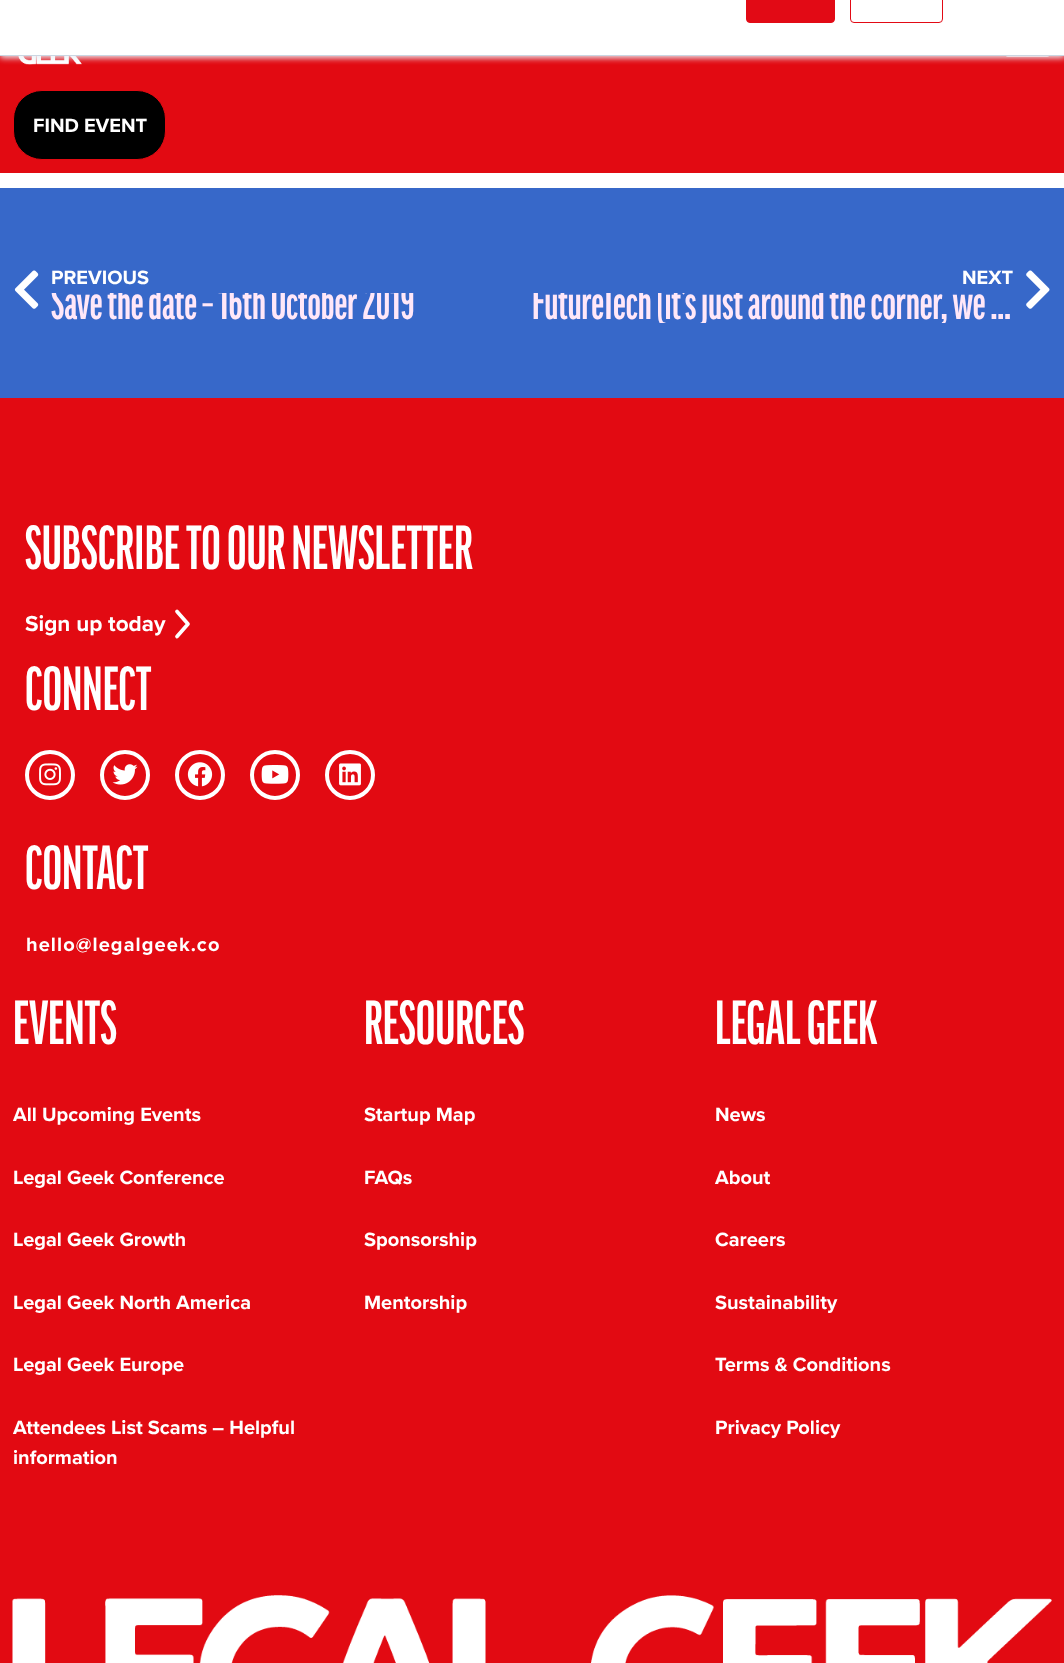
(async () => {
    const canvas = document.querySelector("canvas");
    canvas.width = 1064;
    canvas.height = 1663;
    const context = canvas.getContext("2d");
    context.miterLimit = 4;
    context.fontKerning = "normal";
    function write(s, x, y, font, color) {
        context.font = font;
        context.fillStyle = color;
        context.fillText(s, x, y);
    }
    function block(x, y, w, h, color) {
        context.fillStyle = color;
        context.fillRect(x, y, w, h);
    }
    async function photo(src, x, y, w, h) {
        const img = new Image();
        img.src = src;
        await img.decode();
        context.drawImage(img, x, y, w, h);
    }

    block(0, 0, 1064, 1663, "rgb(255, 255, 255)");
    block(0, 56, 1064, 117, "rgb(226, 10, 18)");
    await photo("media/1.png", 18, 56, 64, 9);
    await photo("media/2.png", 1006, 56, 43, 1);
    context.fillStyle = "rgb(234, 240, 246)";
    context.filter = "blur(3px)";
    context.beginPath();
    context.rect(0, -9, 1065, 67);
    context.fill();
    context.filter = "none";
    block(0, 0, 1064, 55, "rgb(255, 255, 255)");
    block(0, 55, 1064, 1, "rgb(203, 214, 226)");
    context.fillStyle = "rgb(226, 10, 21)";
    context.beginPath();
    context.roundRect(746.5, -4.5, 88, 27, 3.5);
    context.fill();
    context.strokeStyle = "rgb(226, 10, 21)";
    context.stroke();
    context.beginPath();
    context.roundRect(850.5, -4.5, 92, 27, 3.5);
    context.stroke();
    context.fillStyle = "rgb(0, 0, 0)";
    context.beginPath();
    context.roundRect(13.5, 90.5, 152, 69, 28.5);
    context.fill();
    context.strokeStyle = "rgb(226, 10, 18)";
    context.stroke();
    write("FIND EVENT", 33, 132, "bold 20px Proxima Nova", "rgb(255, 255, 255)");
    block(0, 188, 1064, 210, "rgb(55, 104, 201)");
    await photo("media/3.png", 14, 270, 25, 39);
    write("PREVIOUS", 51, 284, "bold 20px Proxima Nova", "rgb(255, 255, 255)");
    context.save();
    context.beginPath();
    context.rect(51, 293, 363, 30);
    context.clip();
    write("Save the date – 16th October 2019", 51, 319, "bold 47.5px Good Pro", "rgb(255, 231, 248)");
    context.restore();
    write("NEXT", 962, 284, "bold 20px Proxima Nova", "rgb(255, 255, 255)");
    context.save();
    context.beginPath();
    context.rect(533, 293, 481, 30);
    context.clip();
    write("FutureTech (it’s just around the corner, we …", 532, 319, "bold 47.5px Good Pro", "rgb(255, 231, 248)");
    context.restore();
    await photo("media/4.png", 1026, 270, 24, 39);
    block(0, 398, 1064, 1265, "rgb(226, 10, 18)");
    write("SUBSCRIBE TO OUR NEWSLETTER", 25, 569, "bold 60px Good Pro", "rgb(255, 255, 255)");
    write("Sign up today", 25, 631, "bold 22.5px Proxima Nova", "rgb(255, 255, 255)");
    context.beginPath();
    context.moveTo(177, 611.5);
    context.lineTo(188, 624);
    context.lineTo(177, 636.5);
    context.strokeStyle = "rgb(255, 255, 255)";
    context.lineWidth = 3.7;
    context.lineCap = "round";
    context.lineJoin = "round";
    context.stroke();
    write("CONNECT", 25, 710, "bold 60px Good Pro", "rgb(255, 255, 255)");
    context.beginPath();
    context.arc(50, 775, 23, 0, Math.PI * 2);
    context.lineWidth = 4;
    context.stroke();
    await photo("media/5.png", 39, 763, 22, 23);
    context.beginPath();
    context.arc(125, 775, 23, 0, Math.PI * 2);
    context.stroke();
    await photo("media/6.png", 112, 764, 26, 21);
    context.beginPath();
    context.arc(200, 775, 23, 0, Math.PI * 2);
    context.stroke();
    await photo("media/7.png", 187, 762, 26, 25);
    context.beginPath();
    context.arc(275, 775, 23, 0, Math.PI * 2);
    context.stroke();
    await photo("media/8.png", 261, 765, 28, 19);
    context.beginPath();
    context.arc(350, 775, 23, 0, Math.PI * 2);
    context.stroke();
    await photo("media/9.png", 339, 763, 22, 23);
    write("CONTACT", 25, 889, "bold 60px Good Pro", "rgb(255, 255, 255)");
    context.letterSpacing = "1.1px";
    write("hello@legalgeek.co", 26, 951, "bold 20px Proxima Nova", "rgb(255, 255, 255)");
    context.letterSpacing = "0px";
    write("EVENTS", 13, 1044, "bold 60px Good Pro", "rgb(255, 255, 255)");
    write("All Upcoming Events", 13, 1121, "bold 20px Proxima Nova", "rgb(255, 255, 255)");
    write("Legal Geek Conference", 13, 1184, "bold 20px Proxima Nova", "rgb(255, 255, 255)");
    write("Legal Geek Growth", 13, 1246, "bold 20px Proxima Nova", "rgb(255, 255, 255)");
    write("Legal Geek North America", 13, 1309, "bold 20px Proxima Nova", "rgb(255, 255, 255)");
    write("Legal Geek Europe", 13, 1371, "bold 20px Proxima Nova", "rgb(255, 255, 255)");
    write("Attendees List Scams – Helpful", 13, 1434, "bold 20px Proxima Nova", "rgb(255, 255, 255)");
    write("information", 13, 1464, "bold 20px Proxima Nova", "rgb(255, 255, 255)");
    write("RESOURCES", 364, 1044, "bold 60px Good Pro", "rgb(255, 255, 255)");
    write("Startup Map", 364, 1121, "bold 20px Proxima Nova", "rgb(255, 255, 255)");
    write("FAQs", 364, 1184, "bold 20px Proxima Nova", "rgb(255, 255, 255)");
    write("Sponsorship", 364, 1246, "bold 20px Proxima Nova", "rgb(255, 255, 255)");
    write("Mentorship", 364, 1309, "bold 20px Proxima Nova", "rgb(255, 255, 255)");
    write("LEGAL GEEK", 715, 1044, "bold 60px Good Pro", "rgb(255, 255, 255)");
    write("News", 715, 1121, "bold 20px Proxima Nova", "rgb(255, 255, 255)");
    write("About", 715, 1184, "bold 20px Proxima Nova", "rgb(255, 255, 255)");
    write("Careers", 715, 1246, "bold 20px Proxima Nova", "rgb(255, 255, 255)");
    write("Sustainability", 715, 1309, "bold 20px Proxima Nova", "rgb(255, 255, 255)");
    write("Terms & Conditions", 715, 1371, "bold 20px Proxima Nova", "rgb(255, 255, 255)");
    write("Privacy Policy", 715, 1434, "bold 20px Proxima Nova", "rgb(255, 255, 255)");
    await photo("media/10.png", 12, 1595, 1040, 68);
})();
